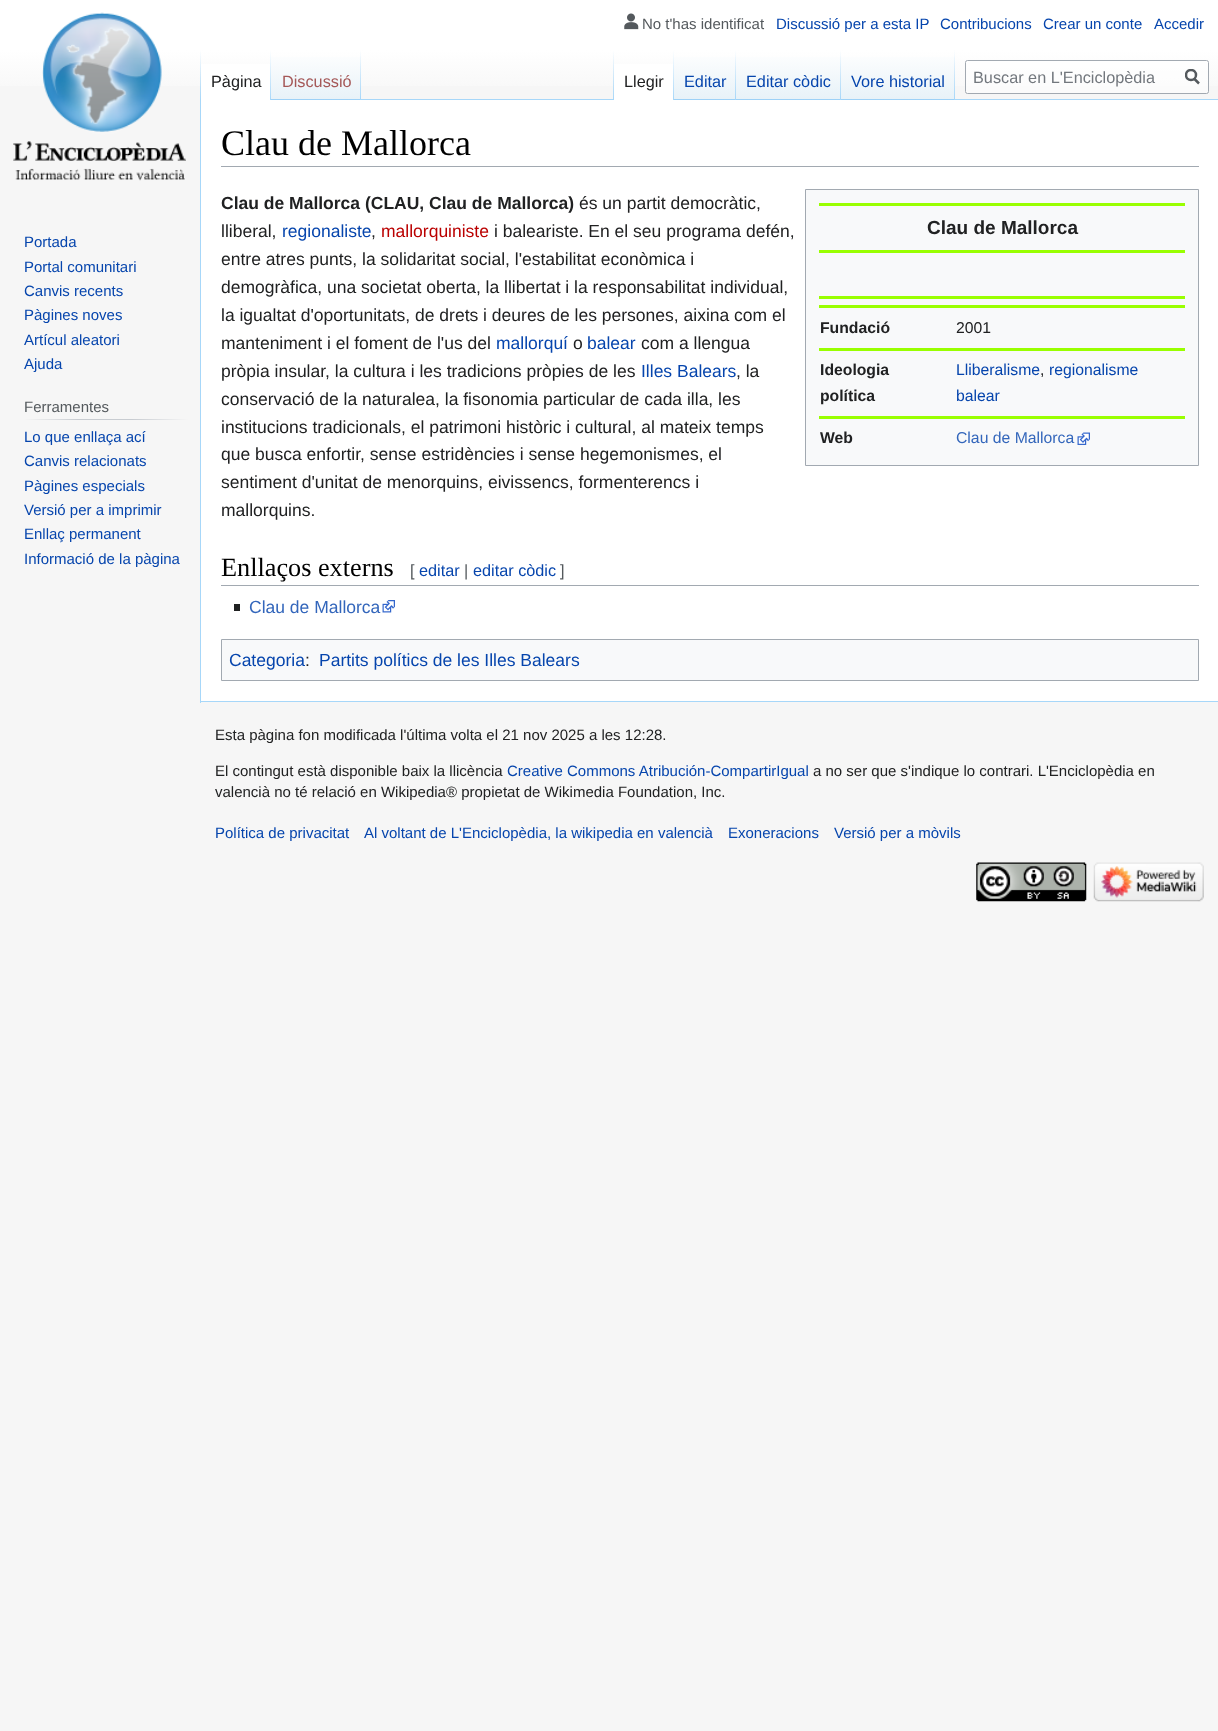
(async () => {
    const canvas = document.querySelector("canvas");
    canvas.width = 1218;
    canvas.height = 1731;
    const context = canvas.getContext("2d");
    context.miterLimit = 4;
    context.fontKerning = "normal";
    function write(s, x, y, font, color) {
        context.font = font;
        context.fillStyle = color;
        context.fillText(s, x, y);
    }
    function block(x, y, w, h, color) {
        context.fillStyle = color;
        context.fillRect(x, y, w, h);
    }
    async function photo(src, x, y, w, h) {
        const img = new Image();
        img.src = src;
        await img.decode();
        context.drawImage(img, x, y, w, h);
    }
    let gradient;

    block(0, 0, 1218, 1731, "rgb(246, 246, 246)");
    gradient = context.createLinearGradient(609, 0, 609, 100);
    gradient.addColorStop(0.5, "rgb(255, 255, 255)");
    gradient.addColorStop(1, "rgb(246, 246, 246)");
    context.fillStyle = gradient;
    context.fillRect(0, 0, 1218, 86);
    await photo("media/1.png", 624, 13, 15, 17);
    write("No t'has identificat", 642, 29, "15px Liberation Sans", "rgb(84, 89, 93)");
    write("Discussió per a esta IP", 776, 29, "15px Liberation Sans", "rgb(6, 69, 173)");
    write("Contribucions", 940, 29, "15px Liberation Sans", "rgb(6, 69, 173)");
    write("Crear un conte", 1043, 29, "15px Liberation Sans", "rgb(6, 69, 173)");
    write("Accedir", 1154, 29, "15px Liberation Sans", "rgb(6, 69, 173)");
    block(200, 701, 1018, 1, "rgb(167, 215, 249)");
    block(200, 99, 1, 604, "rgb(167, 215, 249)");
    gradient = context.createLinearGradient(201, 50, 201, 100);
    gradient.addColorStop(0, "rgba(167, 215, 249, 0)");
    gradient.addColorStop(1, "rgb(167, 215, 249)");
    context.fillStyle = gradient;
    context.fillRect(200, 50, 1, 50);
    block(201, 64, 69, 36, "rgb(255, 255, 255)");
    gradient = context.createLinearGradient(271, 50, 271, 100);
    gradient.addColorStop(0, "rgb(255, 255, 255)");
    gradient.addColorStop(1, "rgb(167, 215, 249)");
    context.fillStyle = gradient;
    context.fillRect(270, 50, 1, 50);
    write("Pàgina", 211, 87, "16.25px Liberation Sans", "rgb(32, 33, 34)");
    gradient = context.createLinearGradient(316, 100, 316, 50);
    gradient.addColorStop(0, "rgb(119, 193, 246)");
    gradient.addColorStop(0.03, "rgb(232, 242, 248)");
    gradient.addColorStop(1, "rgb(255, 255, 255)");
    context.fillStyle = gradient;
    context.fillRect(271, 57, 90, 43);
    gradient = context.createLinearGradient(361, 50, 361, 100);
    gradient.addColorStop(0, "rgba(167, 215, 249, 0)");
    gradient.addColorStop(1, "rgb(167, 215, 249)");
    context.fillStyle = gradient;
    context.fillRect(360, 50, 1, 50);
    write("Discussió", 282, 87, "16.25px Liberation Sans", "rgb(165, 88, 88)");
    block(361, 99, 857, 1, "rgb(167, 215, 249)");
    gradient = context.createLinearGradient(613, 50, 613, 100);
    gradient.addColorStop(0, "rgba(167, 215, 249, 0)");
    gradient.addColorStop(1, "rgb(167, 215, 249)");
    context.fillStyle = gradient;
    context.fillRect(613, 50, 1, 50);
    block(614, 64, 59, 36, "rgb(255, 255, 255)");
    gradient = context.createLinearGradient(673, 50, 673, 100);
    gradient.addColorStop(0, "rgb(255, 255, 255)");
    gradient.addColorStop(1, "rgb(167, 215, 249)");
    context.fillStyle = gradient;
    context.fillRect(673, 50, 1, 50);
    write("Llegir", 624, 87, "16.25px Liberation Sans", "rgb(32, 33, 34)");
    gradient = context.createLinearGradient(705, 100, 705, 50);
    gradient.addColorStop(0, "rgb(119, 193, 246)");
    gradient.addColorStop(0.03, "rgb(232, 242, 248)");
    gradient.addColorStop(1, "rgb(255, 255, 255)");
    context.fillStyle = gradient;
    context.fillRect(674, 57, 62, 43);
    gradient = context.createLinearGradient(736, 50, 736, 100);
    gradient.addColorStop(0, "rgba(167, 215, 249, 0)");
    gradient.addColorStop(1, "rgb(167, 215, 249)");
    context.fillStyle = gradient;
    context.fillRect(735, 50, 1, 50);
    write("Editar", 684, 87, "16.25px Liberation Sans", "rgb(6, 69, 173)");
    gradient = context.createLinearGradient(789, 100, 789, 50);
    gradient.addColorStop(0, "rgb(119, 193, 246)");
    gradient.addColorStop(0.03, "rgb(232, 242, 248)");
    gradient.addColorStop(1, "rgb(255, 255, 255)");
    context.fillStyle = gradient;
    context.fillRect(736, 57, 105, 43);
    gradient = context.createLinearGradient(841, 50, 841, 100);
    gradient.addColorStop(0, "rgba(167, 215, 249, 0)");
    gradient.addColorStop(1, "rgb(167, 215, 249)");
    context.fillStyle = gradient;
    context.fillRect(840, 50, 1, 50);
    write("Editar còdic", 746, 87, "16.25px Liberation Sans", "rgb(6, 69, 173)");
    gradient = context.createLinearGradient(898, 100, 898, 50);
    gradient.addColorStop(0, "rgb(119, 193, 246)");
    gradient.addColorStop(0.03, "rgb(232, 242, 248)");
    gradient.addColorStop(1, "rgb(255, 255, 255)");
    context.fillStyle = gradient;
    context.fillRect(841, 57, 114, 43);
    gradient = context.createLinearGradient(954, 50, 954, 100);
    gradient.addColorStop(0, "rgba(167, 215, 249, 0)");
    gradient.addColorStop(1, "rgb(167, 215, 249)");
    context.fillStyle = gradient;
    context.fillRect(954, 50, 1, 50);
    write("Vore historial", 851, 87, "16.25px Liberation Sans", "rgb(6, 69, 173)");
    context.fillStyle = "rgba(255, 255, 255, 0.5)";
    context.beginPath();
    context.roundRect(965.5, 60.5, 243, 33, 2);
    context.fill();
    context.strokeStyle = "rgb(162, 169, 177)";
    context.stroke();
    write("Buscar en L'Enciclopèdia", 973, 83, "16.25px Liberation Sans", "rgb(114, 119, 125)");
    context.beginPath();
    context.moveTo(1199, 83.5);
    context.lineTo(1194, 78.5);
    context.strokeStyle = "rgb(84, 89, 93)";
    context.lineWidth = 2.5;
    context.stroke();
    context.save();
    context.beginPath();
    context.rect(1185, 69, 15, 16);
    context.clip();
    context.beginPath();
    context.arc(1191, 75, 5, 0, Math.PI * 2);
    context.stroke();
    context.restore();
    await photo("media/2.png", 13, 12, 173, 169);
    write("Portada", 24, 247, "15px Liberation Sans", "rgb(6, 69, 173)");
    write("Portal comunitari", 24, 272, "15px Liberation Sans", "rgb(6, 69, 173)");
    write("Canvis recents", 24, 296, "15px Liberation Sans", "rgb(6, 69, 173)");
    write("Pàgines noves", 24, 320, "15px Liberation Sans", "rgb(6, 69, 173)");
    write("Artícul aleatori", 24, 345, "15px Liberation Sans", "rgb(6, 69, 173)");
    write("Ajuda", 24, 369, "15px Liberation Sans", "rgb(6, 69, 173)");
    gradient = context.createLinearGradient(24, 419, 188, 419);
    gradient.addColorStop(0, "rgb(246, 246, 246)");
    gradient.addColorStop(0.33, "rgb(200, 204, 209)");
    gradient.addColorStop(0.66, "rgb(200, 204, 209)");
    gradient.addColorStop(1, "rgb(246, 246, 246)");
    context.fillStyle = gradient;
    context.fillRect(24, 419, 164, 1);
    write("Ferramentes", 24, 412, "15px Liberation Sans", "rgb(84, 89, 93)");
    write("Lo que enllaça ací", 24, 442, "15px Liberation Sans", "rgb(6, 69, 173)");
    write("Canvis relacionats", 24, 466, "15px Liberation Sans", "rgb(6, 69, 173)");
    write("Pàgines especials", 24, 491, "15px Liberation Sans", "rgb(6, 69, 173)");
    write("Versió per a imprimir", 24, 515, "15px Liberation Sans", "rgb(6, 69, 173)");
    write("Enllaç permanent", 24, 539, "15px Liberation Sans", "rgb(6, 69, 173)");
    write("Informació de la pàgina", 24, 564, "15px Liberation Sans", "rgb(6, 69, 173)");
    block(201, 100, 1017, 601, "rgb(255, 255, 255)");
    block(221, 166, 978, 1, "rgb(162, 169, 177)");
    write("Clau de Mallorca", 221, 155, "36px Liberation Serif", "rgb(0, 0, 0)");
    write("Clau de Mallorca (CLAU, Clau de Mallorca)", 221, 209, "bold 17.5px Liberation Sans", "rgb(32, 33, 34)");
    write("és un partit democràtic,", 579, 209, "17.5px Liberation Sans", "rgb(32, 33, 34)");
    write("lliberal,", 221, 237, "17.5px Liberation Sans", "rgb(32, 33, 34)");
    write("regionaliste", 282, 237, "17.5px Liberation Sans", "rgb(6, 69, 173)");
    write(",", 371, 237, "17.5px Liberation Sans", "rgb(32, 33, 34)");
    write("mallorquiniste", 381, 237, "17.5px Liberation Sans", "rgb(186, 0, 0)");
    write("i baleariste. En el seu programa defén,", 494, 237, "17.5px Liberation Sans", "rgb(32, 33, 34)");
    write("entre atres punts, la solidaritat social, l'estabilitat econòmica i", 221, 265, "17.5px Liberation Sans", "rgb(32, 33, 34)");
    write("demogràfica, una societat oberta, la llibertat i la responsabilitat individual,", 221, 293, "17.5px Liberation Sans", "rgb(32, 33, 34)");
    write("la igualtat d'oportunitats, de drets i deures de les persones, aixina com el", 221, 321, "17.5px Liberation Sans", "rgb(32, 33, 34)");
    write("manteniment i el foment de l'us del", 221, 349, "17.5px Liberation Sans", "rgb(32, 33, 34)");
    write("mallorquí", 496, 349, "17.5px Liberation Sans", "rgb(6, 69, 173)");
    write("o", 573, 349, "17.5px Liberation Sans", "rgb(32, 33, 34)");
    write("balear", 587, 349, "17.5px Liberation Sans", "rgb(6, 69, 173)");
    write("com a llengua", 641, 349, "17.5px Liberation Sans", "rgb(32, 33, 34)");
    write("pròpia insular, la cultura i les tradicions pròpies de les", 221, 377, "17.5px Liberation Sans", "rgb(32, 33, 34)");
    write("Illes Balears", 641, 377, "17.5px Liberation Sans", "rgb(6, 69, 173)");
    write(", la", 736, 377, "17.5px Liberation Sans", "rgb(32, 33, 34)");
    write("conservació de la naturalea, la fisonomia particular de cada illa, les", 221, 405, "17.5px Liberation Sans", "rgb(32, 33, 34)");
    write("institucions tradicionals, el patrimoni històric i cultural, al mateix temps", 221, 433, "17.5px Liberation Sans", "rgb(32, 33, 34)");
    write("que busca enfortir, sense estridències i sense hegemonismes, el", 221, 460, "17.5px Liberation Sans", "rgb(32, 33, 34)");
    write("sentiment d'unitat de menorquins, eivissencs, formenterencs i", 221, 488, "17.5px Liberation Sans", "rgb(32, 33, 34)");
    write("mallorquins.", 221, 516, "17.5px Liberation Sans", "rgb(32, 33, 34)");
    context.fillStyle = "rgb(248, 249, 250)";
    context.beginPath();
    context.rect(805.5, 189.5, 393, 276);
    context.fill();
    context.strokeStyle = "rgb(162, 169, 177)";
    context.lineWidth = 1;
    context.stroke();
    block(819, 203, 366, 3, "rgb(153, 255, 0)");
    write("Clau de Mallorca", 927, 234, "bold 19px Liberation Sans", "rgb(32, 33, 34)");
    block(819, 250, 366, 3, "rgb(153, 255, 0)");
    block(819, 296, 366, 3, "rgb(153, 255, 0)");
    block(819, 305, 366, 3, "rgb(153, 255, 0)");
    write("Fundació", 820, 333, "bold 15.75px Liberation Sans", "rgb(32, 33, 34)");
    write("2001", 956, 333, "15.75px Liberation Sans", "rgb(32, 33, 34)");
    block(819, 348, 366, 3, "rgb(153, 255, 0)");
    write("Ideologia", 820, 375, "bold 15.75px Liberation Sans", "rgb(32, 33, 34)");
    write("política", 820, 401, "bold 15.75px Liberation Sans", "rgb(32, 33, 34)");
    write("Lliberalisme", 956, 375, "15.75px Liberation Sans", "rgb(6, 69, 173)");
    write(",", 1040, 375, "15.75px Liberation Sans", "rgb(32, 33, 34)");
    write("regionalisme", 1049, 375, "15.75px Liberation Sans", "rgb(6, 69, 173)");
    write("balear", 956, 401, "15.75px Liberation Sans", "rgb(6, 69, 173)");
    block(819, 416, 366, 3, "rgb(153, 255, 0)");
    write("Web", 820, 443, "bold 15.75px Liberation Sans", "rgb(32, 33, 34)");
    write("Clau de Mallorca", 956, 443, "15.75px Liberation Sans", "rgb(51, 102, 187)");
    await photo("media/3.png", 1077, 432, 13, 13);
    block(221, 585, 978, 1, "rgb(162, 169, 177)");
    write("Enllaços externs", 221, 576, "26.25px Liberation Serif", "rgb(0, 0, 0)");
    write("[", 410, 576, "16.25px Liberation Sans", "rgb(84, 89, 93)");
    write("editar", 419, 576, "16.25px Liberation Sans", "rgb(6, 69, 173)");
    write("|", 464, 576, "16.25px Liberation Sans", "rgb(84, 89, 93)");
    write("editar còdic", 473, 576, "16.25px Liberation Sans", "rgb(6, 69, 173)");
    write("]", 560, 576, "16.25px Liberation Sans", "rgb(84, 89, 93)");
    block(234, 604, 6, 7, "rgb(32, 33, 34)");
    write("Clau de Mallorca", 249, 613, "17.5px Liberation Sans", "rgb(51, 102, 187)");
    await photo("media/4.png", 382, 600, 13, 13);
    context.fillStyle = "rgb(248, 249, 250)";
    context.beginPath();
    context.rect(221.5, 639.5, 977, 41);
    context.fill();
    context.stroke();
    write("Categoria", 229, 666, "17.5px Liberation Sans", "rgb(6, 69, 173)");
    write(":", 305, 666, "17.5px Liberation Sans", "rgb(32, 33, 34)");
    write("Partits polítics de les Illes Balears", 319, 666, "17.5px Liberation Sans", "rgb(6, 69, 173)");
    write("Esta pàgina fon modificada l'última volta el 21 nov 2025 a les 12:28.", 215, 740, "15px Liberation Sans", "rgb(32, 33, 34)");
    write("El contingut està disponible baix la llicència", 215, 776, "15px Liberation Sans", "rgb(32, 33, 34)");
    write("Creative Commons Atribución-CompartirIgual", 507, 776, "15px Liberation Sans", "rgb(6, 69, 173)");
    write("a no ser que s'indique lo contrari. L'Enciclopèdia en", 813, 776, "15px Liberation Sans", "rgb(32, 33, 34)");
    write("valencià no té relació en Wikipedia® propietat de Wikimedia Foundation, Inc.", 215, 797, "15px Liberation Sans", "rgb(32, 33, 34)");
    write("Política de privacitat", 215, 838, "15px Liberation Sans", "rgb(6, 69, 173)");
    write("Al voltant de L'Enciclopèdia, la wikipedia en valencià", 364, 838, "15px Liberation Sans", "rgb(6, 69, 173)");
    write("Exoneracions", 728, 838, "15px Liberation Sans", "rgb(6, 69, 173)");
    write("Versió per a mòvils", 834, 838, "15px Liberation Sans", "rgb(6, 69, 173)");
    await photo("media/5.png", 976, 862, 111, 40);
    await photo("media/6.png", 1093, 862, 111, 40);
})();
